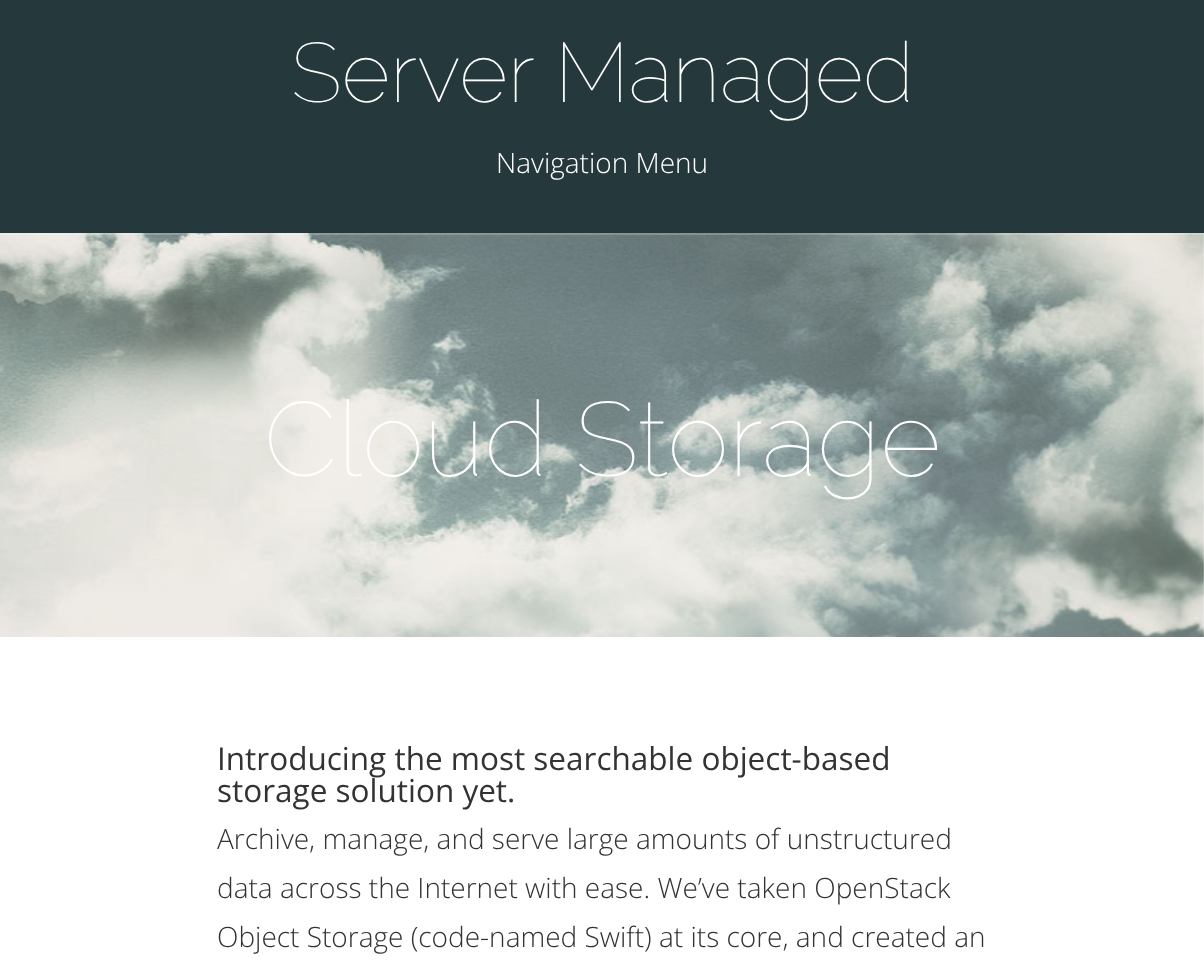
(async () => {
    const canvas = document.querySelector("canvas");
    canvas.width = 1204;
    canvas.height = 966;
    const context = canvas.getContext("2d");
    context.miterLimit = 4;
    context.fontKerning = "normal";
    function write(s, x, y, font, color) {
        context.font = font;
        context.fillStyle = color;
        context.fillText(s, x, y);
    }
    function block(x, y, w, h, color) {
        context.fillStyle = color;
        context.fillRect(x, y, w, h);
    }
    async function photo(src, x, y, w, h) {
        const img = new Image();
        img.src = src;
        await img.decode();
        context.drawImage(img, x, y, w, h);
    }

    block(0, 0, 1204, 966, "rgb(255, 255, 255)");
    await photo("media/1.png", 0, 233, 1204, 404);
    block(0, 233, 1204, 2, "rgba(255, 255, 255, 0.2)");
    block(0, 0, 1204, 233, "rgb(37, 56, 59)");
    write("Server Managed", 291, 102, "100 84px Raleway", "rgb(255, 255, 255)");
    write("Navigation Menu", 496, 173, "300 28px Open Sans", "rgb(255, 255, 255)");
    write("Cloud Storage", 264, 476, "100 105px Raleway", "rgb(255, 255, 255)");
    write("Introducing the most searchable object-based", 217, 770, "31.5px Open Sans", "rgb(51, 51, 51)");
    write("storage solution yet.", 217, 802, "31.5px Open Sans", "rgb(51, 51, 51)");
    write("Archive, manage, and serve large amounts of unstructured", 217, 849, "300 28px Open Sans", "rgb(51, 51, 51)");
    write("data across the Internet with ease. We’ve taken OpenStack", 217, 898, "300 28px Open Sans", "rgb(51, 51, 51)");
    write("Object Storage (code-named Swift) at its core, and created an", 217, 947, "300 28px Open Sans", "rgb(51, 51, 51)");
})();
